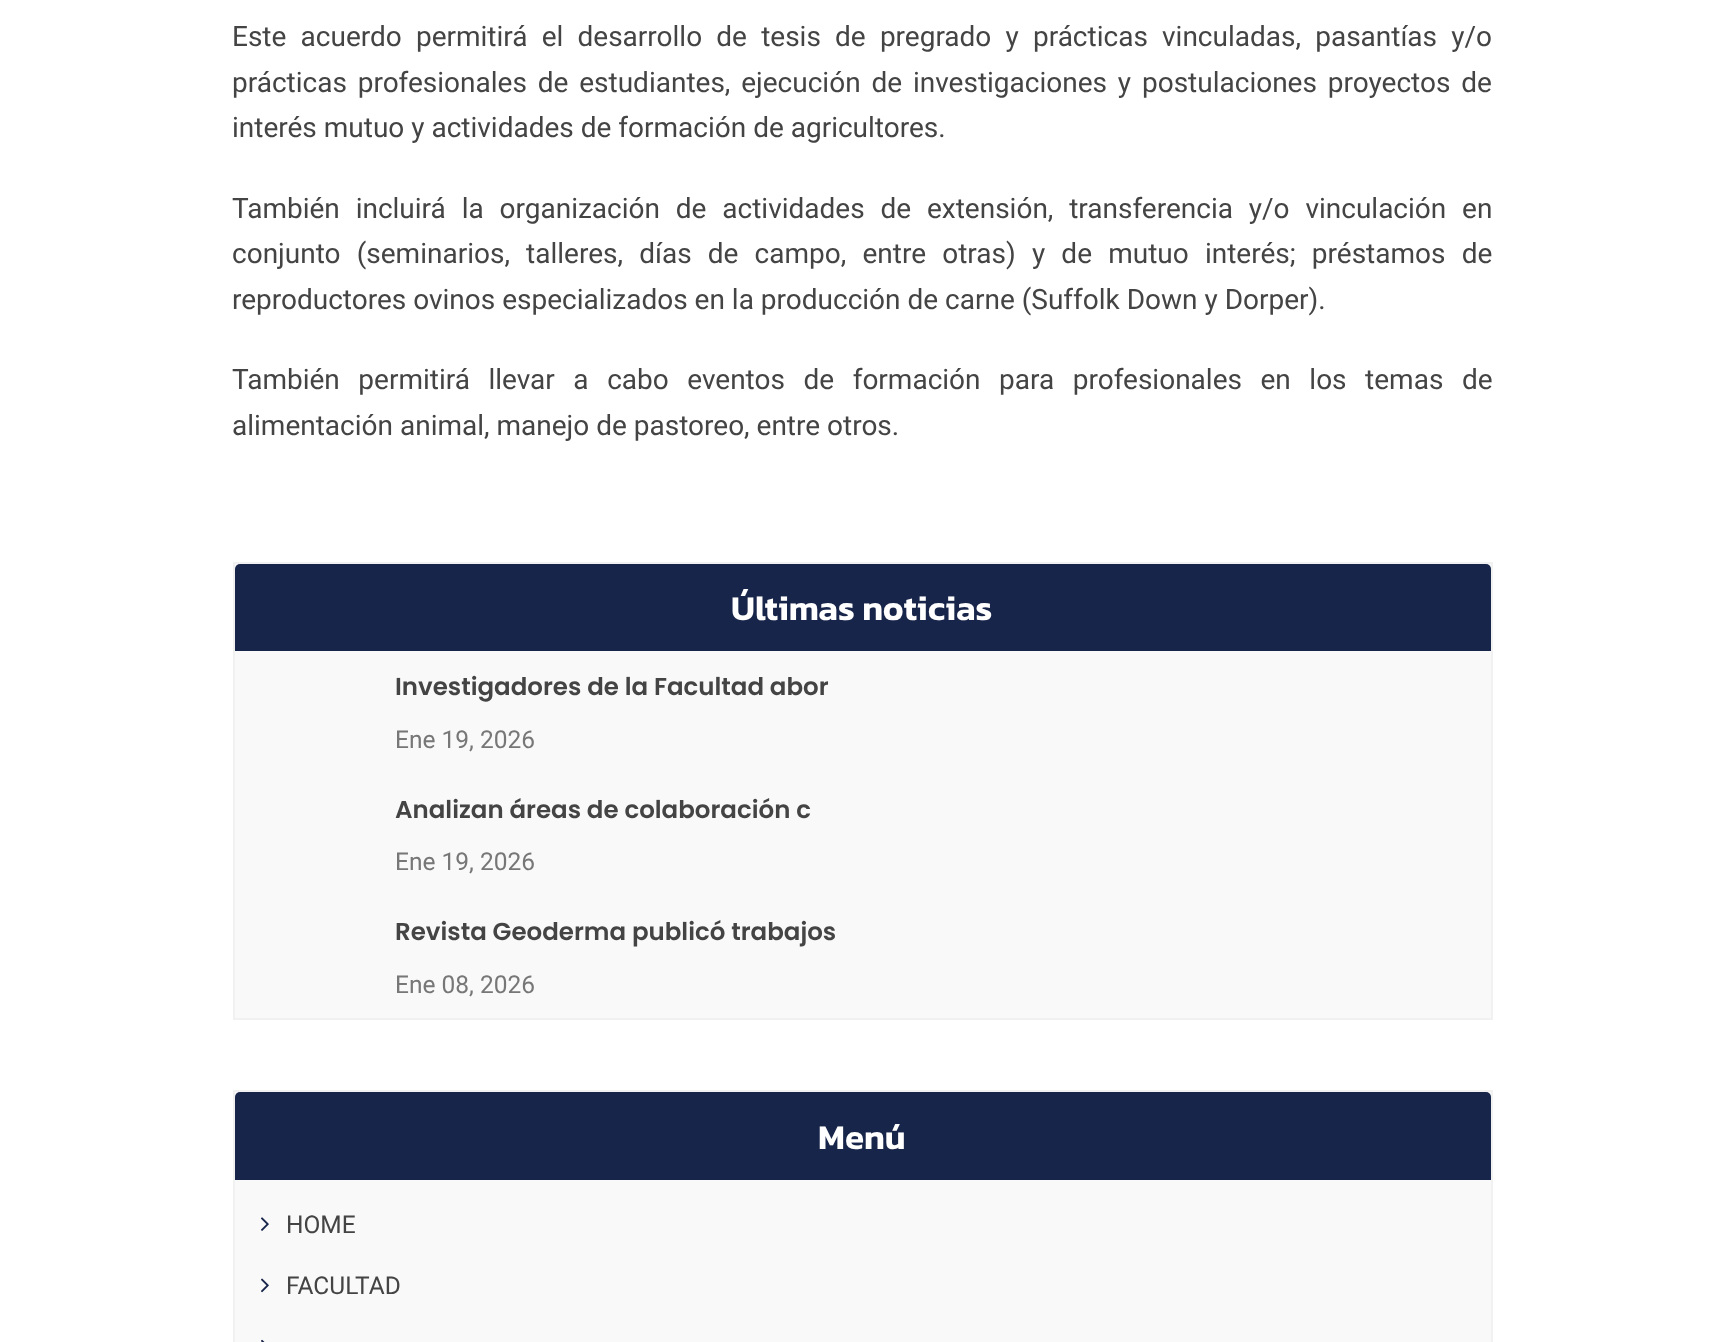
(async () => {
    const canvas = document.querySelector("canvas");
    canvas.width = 1723;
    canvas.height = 1342;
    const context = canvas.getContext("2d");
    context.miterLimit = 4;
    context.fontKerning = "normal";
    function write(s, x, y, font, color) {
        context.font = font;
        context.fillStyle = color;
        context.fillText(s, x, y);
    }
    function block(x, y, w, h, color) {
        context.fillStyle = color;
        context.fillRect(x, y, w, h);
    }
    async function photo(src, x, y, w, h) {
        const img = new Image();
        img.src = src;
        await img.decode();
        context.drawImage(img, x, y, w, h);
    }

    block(0, 0, 1723, 1342, "rgb(255, 255, 255)");
    context.wordSpacing = "7.25px";
    write("Este acuerdo permitirá el desarrollo de tesis de pregrado y prácticas vinculadas, pasantías y/o", 232, 46, "28px Roboto", "rgb(68, 68, 68)");
    context.wordSpacing = "3.9px";
    write("prácticas profesionales de estudiantes, ejecución de investigaciones y postulaciones proyectos de", 232, 92, "28px Roboto", "rgb(68, 68, 68)");
    context.wordSpacing = "0px";
    write("interés mutuo y actividades de formación de agricultores.", 232, 137, "28px Roboto", "rgb(68, 68, 68)");
    context.wordSpacing = "8.9px";
    write("También incluirá la organización de actividades de extensión, transferencia y/o vinculación en", 232, 218, "28px Roboto", "rgb(68, 68, 68)");
    context.wordSpacing = "9.25px";
    write("conjunto (seminarios, talleres, días de campo, entre otras) y de mutuo interés; préstamos de", 232, 263, "28px Roboto", "rgb(68, 68, 68)");
    context.wordSpacing = "0px";
    write("reproductores ovinos especializados en la producción de carne (Suffolk Down y Dorper).", 232, 309, "28px Roboto", "rgb(68, 68, 68)");
    context.wordSpacing = "11.6px";
    write("También permitirá llevar a cabo eventos de formación para profesionales en los temas de", 232, 389, "28px Roboto", "rgb(68, 68, 68)");
    context.wordSpacing = "0px";
    write("alimentación animal, manejo de pastoreo, entre otros.", 232, 435, "28px Roboto", "rgb(68, 68, 68)");
    context.fillStyle = "rgb(249, 249, 249)";
    context.beginPath();
    context.rect(234, 563, 1258, 456);
    context.fill();
    context.strokeStyle = "rgb(241, 241, 241)";
    context.lineWidth = 2;
    context.stroke();
    context.fillStyle = "rgb(24, 37, 74)";
    context.beginPath();
    context.roundRect(235, 564, 1256, 87, [5, 5, 0, 0]);
    context.fill();
    write("Últimas noticias", 731, 620, "600 35px Kanit", "rgb(255, 255, 255)");
    write("Investigadores de la Facultad abor", 395, 695, "600 24.5px Poppins", "rgb(68, 68, 68)");
    write("Ene 19, 2026", 395, 748, "24.5px Roboto", "rgb(119, 119, 119)");
    write("Analizan áreas de colaboración c", 395, 818, "600 24.5px Poppins", "rgb(68, 68, 68)");
    write("Ene 19, 2026", 395, 870, "24.5px Roboto", "rgb(119, 119, 119)");
    write("Revista Geoderma publicó trabajos", 395, 940, "600 24.5px Poppins", "rgb(68, 68, 68)");
    write("Ene 08, 2026", 395, 993, "24.5px Roboto", "rgb(119, 119, 119)");
    context.fillStyle = "rgb(249, 249, 249)";
    context.beginPath();
    context.rect(234, 1091, 1258, 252);
    context.fill();
    context.stroke();
    context.fillStyle = "rgb(24, 37, 74)";
    context.beginPath();
    context.roundRect(235, 1092, 1256, 88, [5, 5, 0, 0]);
    context.fill();
    write("Menú", 818, 1149, "600 35px Kanit", "rgb(255, 255, 255)");
    await photo("media/1.png", 261, 1217, 8, 14);
    write("HOME", 286, 1233, "24.5px Roboto", "rgb(68, 68, 68)");
    await photo("media/2.png", 261, 1278, 8, 15);
    write("FACULTAD", 286, 1294, "24.5px Roboto", "rgb(68, 68, 68)");
    await photo("media/3.png", 261, 1339, 4, 3);
})();
